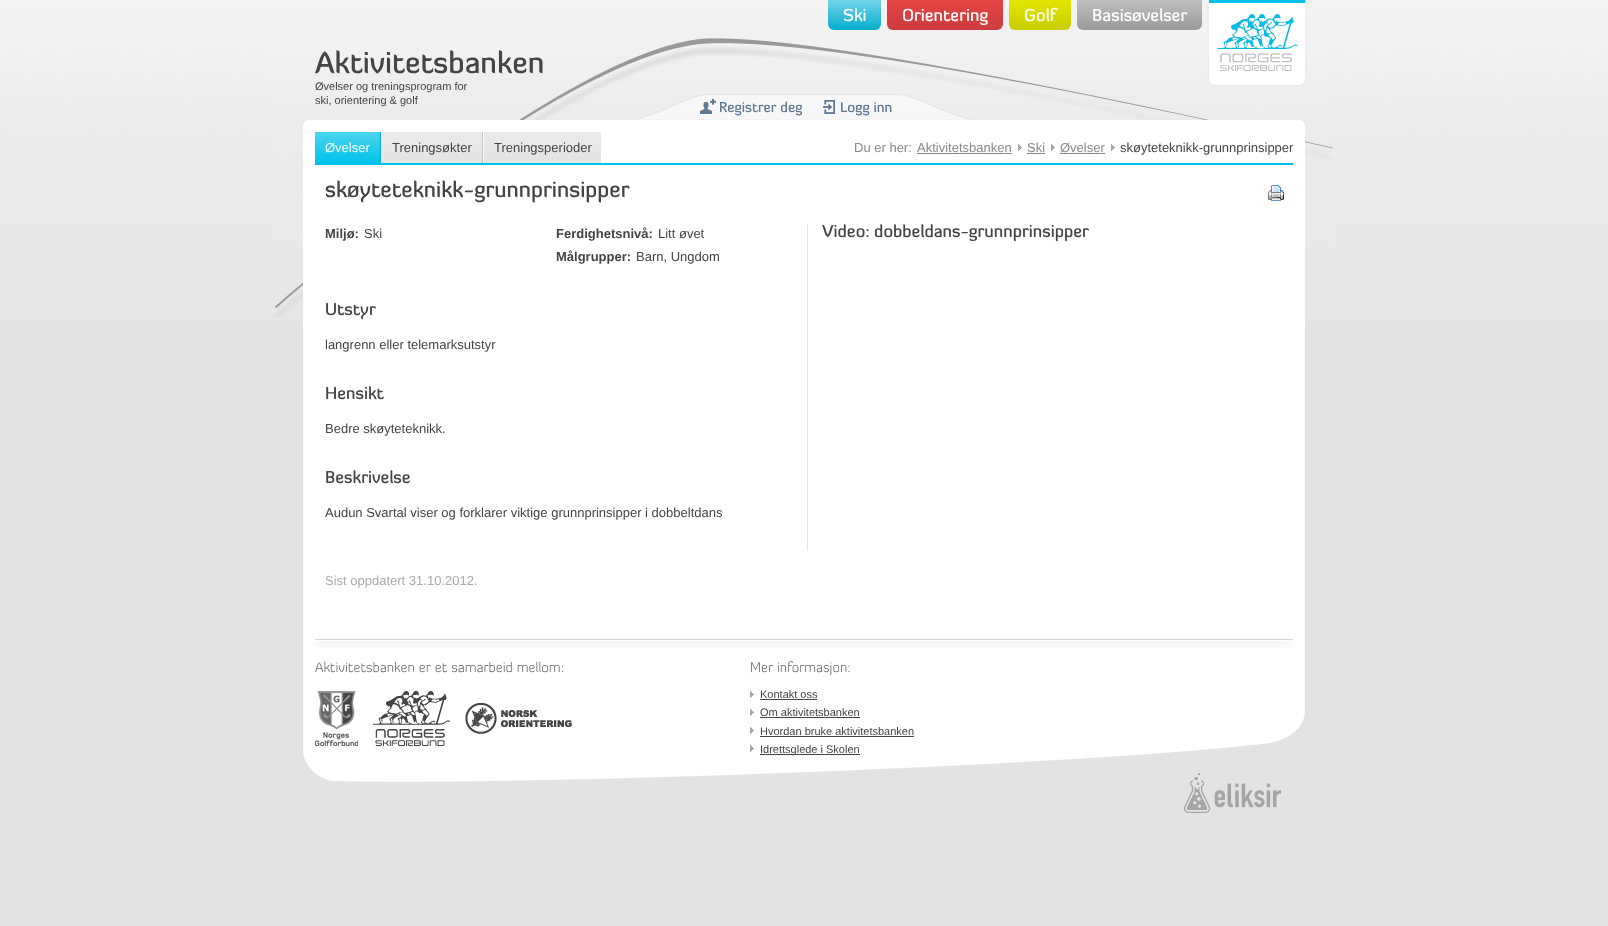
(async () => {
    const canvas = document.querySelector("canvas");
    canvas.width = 1608;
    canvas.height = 926;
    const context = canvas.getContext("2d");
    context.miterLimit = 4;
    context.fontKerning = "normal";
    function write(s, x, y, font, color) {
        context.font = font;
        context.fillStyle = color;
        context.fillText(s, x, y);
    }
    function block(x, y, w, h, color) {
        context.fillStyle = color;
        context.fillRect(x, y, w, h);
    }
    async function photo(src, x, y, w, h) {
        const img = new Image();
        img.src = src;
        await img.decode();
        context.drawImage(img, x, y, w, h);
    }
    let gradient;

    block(0, 0, 1608, 926, "rgb(227, 227, 227)");
    await photo("media/1.png", 0, 0, 1608, 321);
    await photo("media/2.png", 273, 38, 1061, 280);
    gradient = context.createLinearGradient(855, 30, 855, 0);
    gradient.addColorStop(0, "rgb(2, 173, 206)");
    gradient.addColorStop(1, "rgb(117, 212, 231)");
    context.fillStyle = gradient;
    context.beginPath();
    context.roundRect(828, 0, 53, 30, [0, 0, 6, 6]);
    context.fill();
    write("Ski", 843, 21, "500 17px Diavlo", "rgb(255, 255, 255)");
    gradient = context.createLinearGradient(945, 30, 945, 0);
    gradient.addColorStop(0, "rgb(204, 60, 60)");
    gradient.addColorStop(1, "rgb(229, 68, 68)");
    context.fillStyle = gradient;
    context.beginPath();
    context.roundRect(887, 0, 116, 30, [0, 0, 6, 6]);
    context.fill();
    write("Orientering", 902, 21, "500 17px Diavlo", "rgb(255, 255, 255)");
    gradient = context.createLinearGradient(1040, 30, 1040, 0);
    gradient.addColorStop(0, "rgb(202, 205, 0)");
    gradient.addColorStop(1, "rgb(226, 230, 0)");
    context.fillStyle = gradient;
    context.beginPath();
    context.roundRect(1009, 0, 62, 30, [0, 0, 6, 6]);
    context.fill();
    write("Golf", 1024, 21, "500 17px Diavlo", "rgb(255, 255, 255)");
    gradient = context.createLinearGradient(1140, 30, 1140, 0);
    gradient.addColorStop(0, "rgb(153, 153, 153)");
    gradient.addColorStop(1, "rgb(192, 192, 192)");
    context.fillStyle = gradient;
    context.beginPath();
    context.roundRect(1077, 0, 125, 30, [0, 0, 6, 6]);
    context.fill();
    write("Basisøvelser", 1092, 21, "500 17px Diavlo", "rgb(255, 255, 255)");
    context.fillStyle = "rgb(226, 226, 226)";
    context.filter = "blur(1.5px)";
    context.beginPath();
    context.roundRect(1209, 0, 96, 85, 6);
    context.fill();
    context.filter = "none";
    context.fillStyle = "rgb(255, 255, 255)";
    context.beginPath();
    context.roundRect(1209, 0, 96, 85, [0, 0, 6, 6]);
    context.fill();
    await photo("media/3.png", 1217, 14, 80, 57);
    block(1209, 0, 96, 3, "rgb(0, 194, 232)");
    write("Aktivitetsbanken", 315, 73, "500 30px Diavlo", "rgb(68, 68, 68)");
    write("Øvelser og treningsprogram for", 315, 90, "11px Liberation Sans", "rgb(68, 68, 68)");
    write("ski, orientering & golf", 315, 104, "11px Liberation Sans", "rgb(68, 68, 68)");
    context.fillStyle = "rgb(255, 255, 255)";
    context.beginPath();
    context.roundRect(303, 120, 1002, 534, [6, 6, 0, 0]);
    context.fill();
    await photo("media/4.png", 315, 639, 978, 9);
    await photo("media/5.png", 632, 94, 342, 26);
    await photo("media/6.png", 700, 99, 16, 16);
    write("Registrer deg", 719, 112, "500 14px Diavlo", "rgb(96, 120, 144)");
    await photo("media/7.png", 823, 100, 12, 15);
    write("Logg inn", 840, 112, "500 14px Diavlo", "rgb(96, 120, 144)");
    block(315, 163, 978, 2, "rgb(0, 194, 232)");
    gradient = context.createLinearGradient(348, 163, 348, 132);
    gradient.addColorStop(0, "rgb(0, 194, 232)");
    gradient.addColorStop(1, "rgb(77, 212, 239)");
    context.fillStyle = gradient;
    context.fillRect(315, 132, 65, 31);
    block(380, 132, 1, 31, "rgb(0, 172, 206)");
    write("Øvelser", 325, 152, "13px Liberation Sans", "rgb(255, 255, 255)");
    gradient = context.createLinearGradient(432, 163, 432, 132);
    gradient.addColorStop(0, "rgb(227, 227, 227)");
    gradient.addColorStop(1, "rgb(235, 235, 235)");
    context.fillStyle = gradient;
    context.fillRect(382, 132, 100, 31);
    block(482, 132, 1, 31, "rgb(195, 195, 195)");
    write("Treningsøkter", 392, 152, "13px Liberation Sans", "rgb(68, 68, 68)");
    gradient = context.createLinearGradient(543, 163, 543, 132);
    gradient.addColorStop(0, "rgb(227, 227, 227)");
    gradient.addColorStop(1, "rgb(235, 235, 235)");
    context.fillStyle = gradient;
    context.fillRect(484, 132, 117, 31);
    write("Treningsperioder", 494, 152, "13px Liberation Sans", "rgb(68, 68, 68)");
    write("Du er her:", 854, 152, "13px Liberation Sans", "rgb(136, 136, 136)");
    await photo("media/8.png", 1018, 144, 4, 7);
    write("Aktivitetsbanken", 917, 152, "13px Liberation Sans", "rgb(136, 136, 136)");
    block(917, 153, 95, 1, "rgb(136, 136, 136)");
    await photo("media/8.png", 1051, 144, 4, 7);
    write("Ski", 1027, 152, "13px Liberation Sans", "rgb(136, 136, 136)");
    block(1027, 153, 18, 1, "rgb(136, 136, 136)");
    await photo("media/8.png", 1111, 144, 4, 7);
    write("Øvelser", 1060, 152, "13px Liberation Sans", "rgb(136, 136, 136)");
    block(1060, 153, 45, 1, "rgb(136, 136, 136)");
    write("skøyteteknikk-grunnprinsipper", 1120, 152, "13px Liberation Sans", "rgb(68, 68, 68)");
    write("skøyteteknikk-grunnprinsipper", 325, 197, "500 22px Diavlo", "rgb(68, 68, 68)");
    await photo("media/9.png", 1268, 185, 16, 16);
    write("Miljø:", 325, 238, "bold 13px Liberation Sans", "rgb(68, 68, 68)");
    write("Ski", 364, 238, "13px Liberation Sans", "rgb(68, 68, 68)");
    write("Ferdighetsnivå:", 556, 238, "bold 13px Liberation Sans", "rgb(68, 68, 68)");
    write("Litt øvet", 658, 238, "13px Liberation Sans", "rgb(68, 68, 68)");
    write("Målgrupper:", 556, 261, "bold 13px Liberation Sans", "rgb(68, 68, 68)");
    write("Barn, Ungdom", 636, 261, "13px Liberation Sans", "rgb(68, 68, 68)");
    write("Utstyr", 325, 315, "500 17px Diavlo", "rgb(68, 68, 68)");
    write("langrenn eller telemarksutstyr", 325, 349, "13px Liberation Sans", "rgb(68, 68, 68)");
    write("Hensikt", 325, 399, "500 17px Diavlo", "rgb(68, 68, 68)");
    write("Bedre skøyteteknikk.", 325, 433, "13px Liberation Sans", "rgb(68, 68, 68)");
    write("Beskrivelse", 325, 483, "500 17px Diavlo", "rgb(68, 68, 68)");
    write("Audun Svartal viser og forklarer viktige grunnprinsipper i dobbeltdans", 325, 517, "13px Liberation Sans", "rgb(68, 68, 68)");
    block(807, 224, 1, 327, "rgb(227, 227, 227)");
    write("Video: dobbeldans-grunnprinsipper", 822, 237, "500 17px Diavlo", "rgb(68, 68, 68)");
    write("Sist oppdatert 31.10.2012.", 325, 585, "13px Liberation Sans", "rgb(170, 170, 170)");
    block(303, 654, 1002, 59, "rgb(255, 255, 255)");
    await photo("media/10.png", 303, 713, 1002, 70);
    write("Aktivitetsbanken er et samarbeid mellom:", 315, 672, "300 14px Diavlo", "rgb(102, 102, 102)");
    await photo("media/11.png", 315, 691, 43, 55);
    await photo("media/12.png", 373, 691, 77, 55);
    await photo("media/13.png", 465, 702, 107, 32);
    write("Mer informasjon:", 750, 672, "300 14px Diavlo", "rgb(102, 102, 102)");
    await photo("media/8.png", 750, 691, 4, 7);
    write("Kontakt oss", 760, 698, "11px Liberation Sans", "rgb(68, 68, 68)");
    block(760, 699, 57, 1, "rgb(68, 68, 68)");
    await photo("media/8.png", 750, 709, 4, 7);
    write("Om aktivitetsbanken", 760, 716, "11px Liberation Sans", "rgb(68, 68, 68)");
    block(760, 717, 100, 1, "rgb(68, 68, 68)");
    await photo("media/8.png", 750, 727, 4, 7);
    write("Hvordan bruke aktivitetsbanken", 760, 735, "11px Liberation Sans", "rgb(68, 68, 68)");
    block(760, 736, 154, 1, "rgb(68, 68, 68)");
    await photo("media/8.png", 750, 745, 4, 7);
    block(760, 754, 100, 1, "rgb(68, 68, 68)");
    write("Idrettsglede i Skolen", 760, 753, "11px Liberation Sans", "rgb(68, 68, 68)");
    await photo("media/14.png", 1184, 773, 97, 40);
})();
